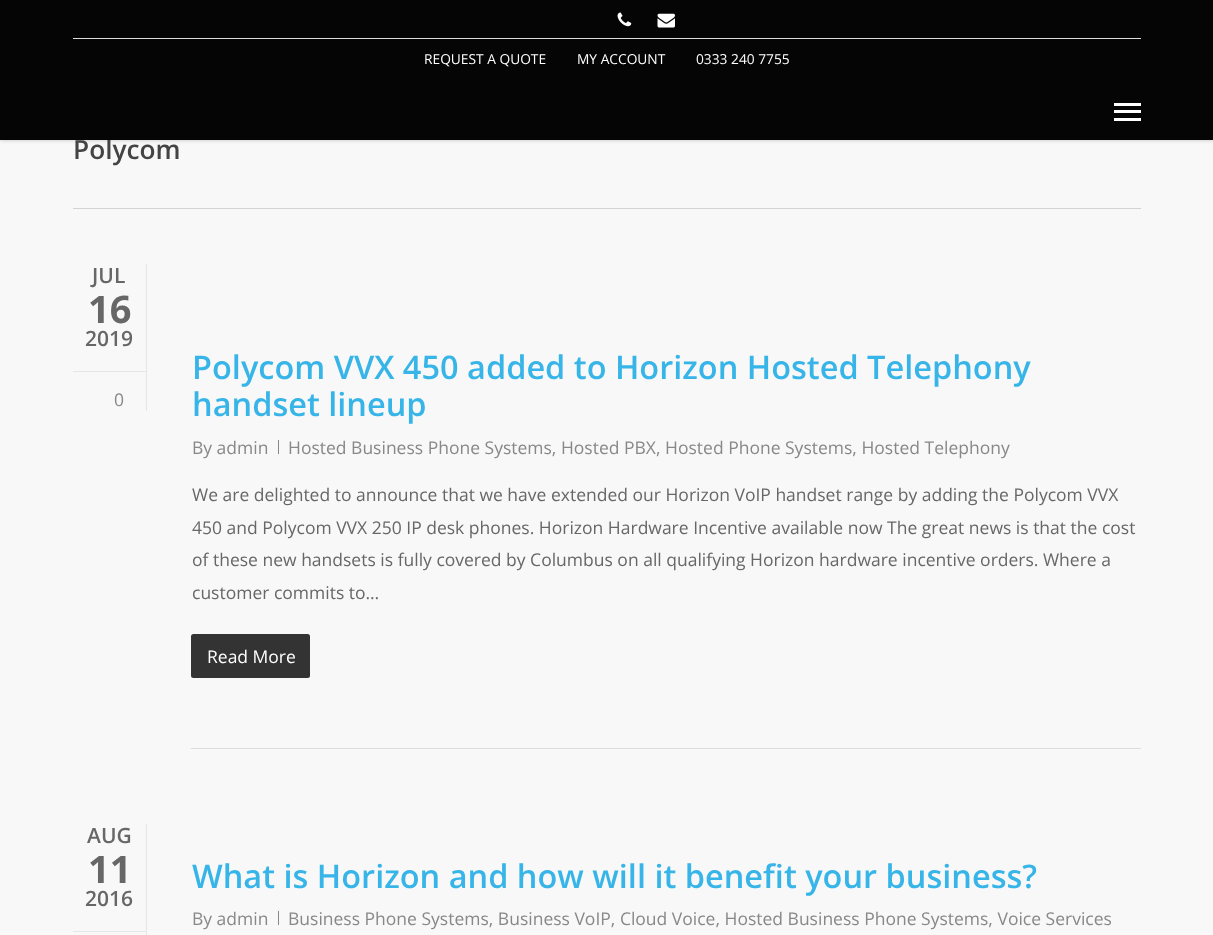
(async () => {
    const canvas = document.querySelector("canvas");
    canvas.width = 1213;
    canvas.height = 935;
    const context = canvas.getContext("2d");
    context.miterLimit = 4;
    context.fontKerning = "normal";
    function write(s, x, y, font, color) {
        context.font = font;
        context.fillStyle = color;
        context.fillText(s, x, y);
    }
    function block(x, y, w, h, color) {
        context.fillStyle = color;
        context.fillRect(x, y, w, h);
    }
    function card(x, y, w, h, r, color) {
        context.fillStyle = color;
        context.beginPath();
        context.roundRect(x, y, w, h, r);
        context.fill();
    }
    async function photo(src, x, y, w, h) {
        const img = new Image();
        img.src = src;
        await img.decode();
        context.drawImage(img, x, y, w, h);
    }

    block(0, 0, 1213, 935, "rgb(248, 248, 248)");
    context.fillStyle = "rgba(0, 0, 0, 0.22)";
    context.filter = "blur(2px)";
    context.beginPath();
    context.rect(0, 0, 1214, 140);
    context.fill();
    context.filter = "none";
    write("Polycom", 73, 159, "600 26.25px Open Sans", "rgb(68, 68, 68)");
    block(0, 0, 1213, 140, "rgb(5, 5, 5)");
    await photo("media/1.png", 617, 12, 15, 15);
    await photo("media/2.png", 657, 13, 18, 15);
    block(73, 38, 1068, 1, "rgb(221, 221, 221)");
    write("REQUEST A QUOTE", 424, 64, "13.75px Open Sans", "rgb(255, 255, 255)");
    write("MY ACCOUNT", 577, 64, "13.75px Open Sans", "rgb(255, 255, 255)");
    write("0333 240 7755", 696, 64, "13.75px Open Sans", "rgb(255, 255, 255)");
    block(1114, 103, 27, 3, "rgb(255, 255, 255)");
    block(1114, 118, 27, 3, "rgb(255, 255, 255)");
    block(1114, 110, 27, 3, "rgb(255, 255, 255)");
    block(73, 208, 1068, 1, "rgb(211, 211, 211)");
    block(146, 264, 1, 147, "rgb(230, 230, 230)");
    block(73, 371, 73, 1, "rgb(230, 230, 230)");
    write("JUL", 92, 283, "600 21px Open Sans", "rgb(103, 103, 103)");
    write("16", 88, 323, "bold 38px Open Sans", "rgb(103, 103, 103)");
    write("2019", 85, 346, "600 21px Open Sans", "rgb(103, 103, 103)");
    write("0", 114, 406, "17.5px Open Sans", "rgb(136, 136, 136)");
    block(191, 748, 950, 1, "rgb(221, 221, 221)");
    write("Polycom VVX 450 added to Horizon Hosted Telephony", 192, 379, "600 32.5px Open Sans", "rgb(55, 181, 232)");
    write("handset lineup", 192, 416, "600 32.5px Open Sans", "rgb(55, 181, 232)");
    write("By admin", 192, 454, "17.5px Open Sans", "rgb(136, 136, 136)");
    block(278, 440, 1, 14, "rgb(136, 136, 136)");
    write("Hosted Business Phone Systems, Hosted PBX, Hosted Phone Systems, Hosted Telephony", 288, 454, "17.5px Open Sans", "rgb(136, 136, 136)");
    write("We are delighted to announce that we have extended our Horizon VoIP handset range by adding the Polycom VVX", 192, 501, "17.5px Open Sans", "rgb(103, 103, 103)");
    write("450 and Polycom VVX 250 IP desk phones. Horizon Hardware Incentive available now The great news is that the cost", 192, 534, "17.5px Open Sans", "rgb(103, 103, 103)");
    write("of these new handsets is fully covered by Columbus on all qualifying Horizon hardware incentive orders. Where a", 192, 566, "17.5px Open Sans", "rgb(103, 103, 103)");
    write("customer commits to…", 192, 599, "17.5px Open Sans", "rgb(103, 103, 103)");
    card(191, 634, 119, 44, 2.5, "rgb(51, 51, 51)");
    write("Read More", 207, 663, "17.5px Open Sans", "rgb(255, 255, 255)");
    block(146, 824, 1, 111, "rgb(230, 230, 230)");
    block(73, 931, 73, 1, "rgb(230, 230, 230)");
    write("AUG", 87, 843, "600 21px Open Sans", "rgb(103, 103, 103)");
    write("11", 88, 883, "bold 38px Open Sans", "rgb(103, 103, 103)");
    write("2016", 85, 906, "600 21px Open Sans", "rgb(103, 103, 103)");
    write("What is Horizon and how will it benefit your business?", 192, 888, "600 32.5px Open Sans", "rgb(55, 181, 232)");
    write("By admin", 192, 925, "17.5px Open Sans", "rgb(136, 136, 136)");
    block(278, 911, 1, 14, "rgb(136, 136, 136)");
    write("Business Phone Systems, Business VoIP, Cloud Voice, Hosted Business Phone Systems, Voice Services", 288, 925, "17.5px Open Sans", "rgb(136, 136, 136)");
})();
